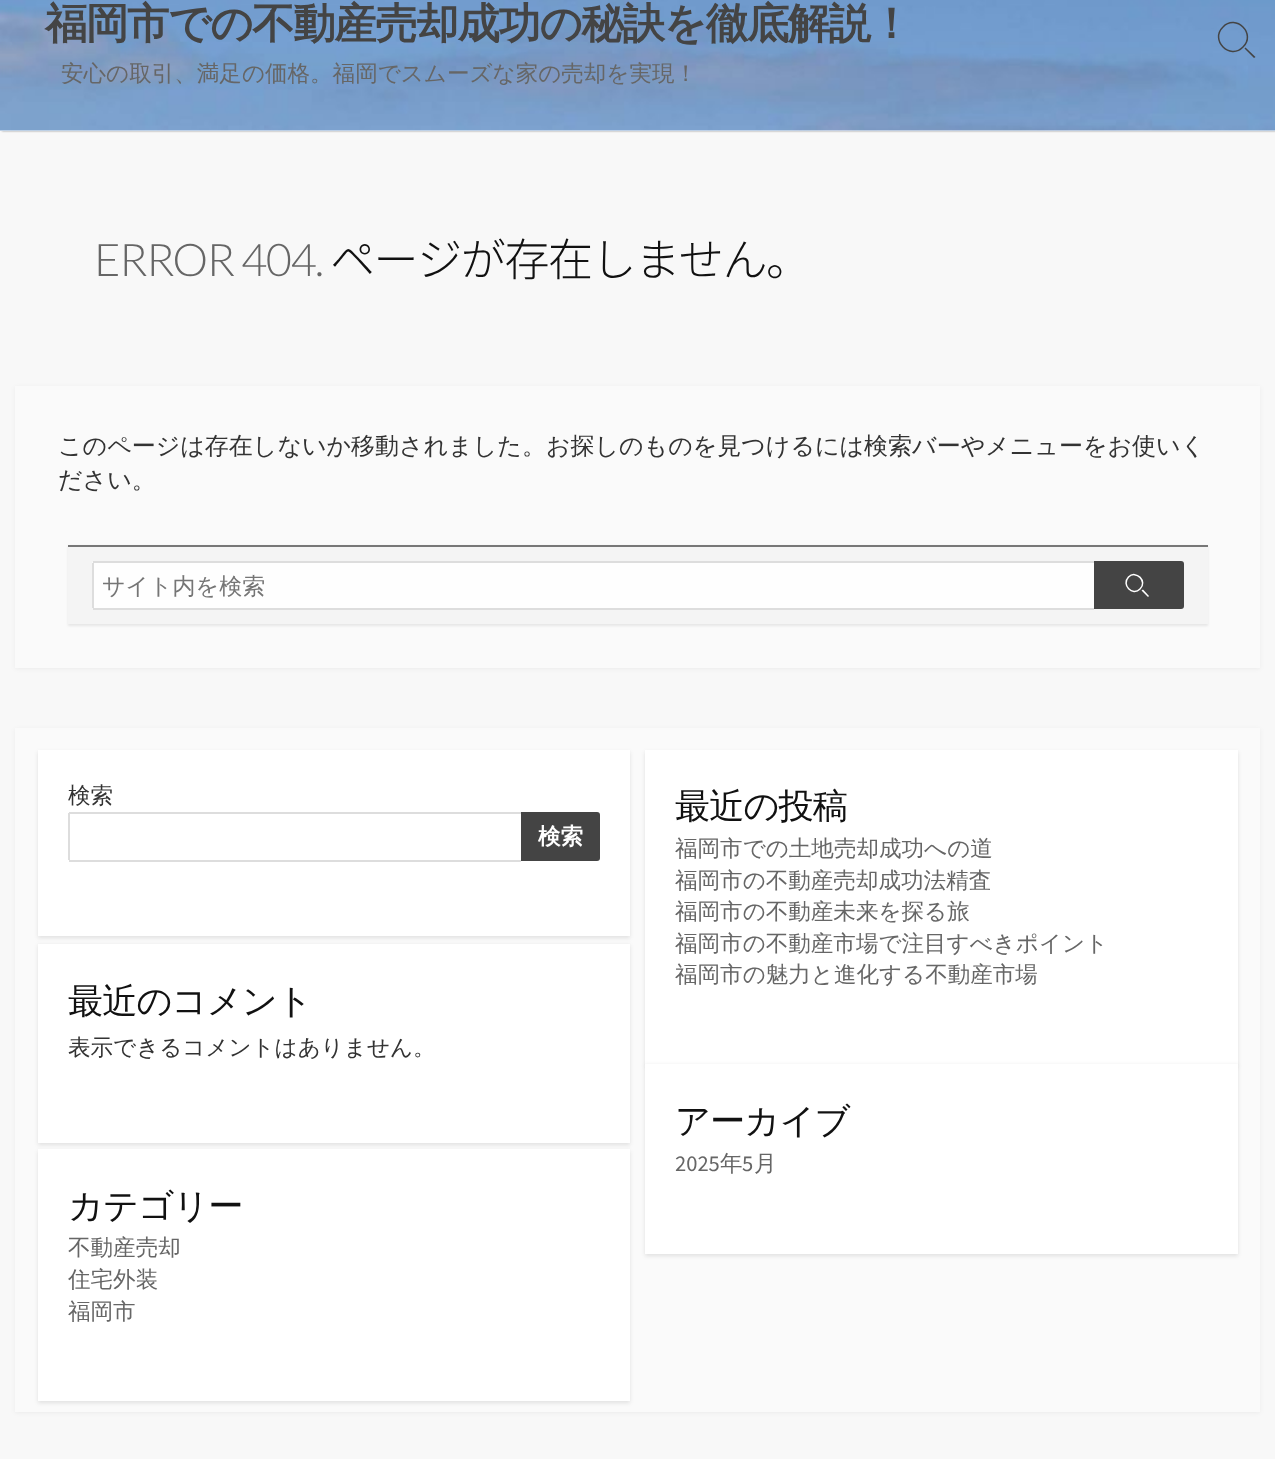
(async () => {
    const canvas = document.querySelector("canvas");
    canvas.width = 1275;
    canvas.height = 1459;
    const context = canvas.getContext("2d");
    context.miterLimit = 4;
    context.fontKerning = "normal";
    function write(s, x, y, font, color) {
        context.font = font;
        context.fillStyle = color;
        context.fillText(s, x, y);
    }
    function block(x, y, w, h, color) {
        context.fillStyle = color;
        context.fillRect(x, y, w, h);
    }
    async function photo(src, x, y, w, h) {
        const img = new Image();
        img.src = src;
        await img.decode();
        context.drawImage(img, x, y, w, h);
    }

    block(0, 0, 1275, 1459, "rgb(248, 248, 248)");
    context.fillStyle = "rgba(0, 0, 0, 0.4)";
    context.filter = "blur(1px)";
    context.beginPath();
    context.rect(2, -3, 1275, 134);
    context.fill();
    context.filter = "none";
    block(0, 130, 1275, 1, "rgb(255, 255, 255)");
    await photo("media/1.png", 0, 0, 1275, 131);
    context.letterSpacing = "-1.25px";
    write("福岡市での不動産売却成功の秘訣を徹底解説！", 45, 38, "bold 42.3px WenQuanYi Zen Hei", "rgb(68, 68, 68)");
    context.letterSpacing = "0px";
    write("安心の取引、満足の価格。福岡でスムーズな家の売却を実現！", 61, 81, "500 22.55px WenQuanYi Zen Hei", "rgb(102, 102, 102)");
    context.beginPath();
    context.moveTo(1223, 27);
    context.bezierCurveTo(1236, 13.5, 1256.5, 34, 1243, 47);
    context.bezierCurveTo(1230, 60.5, 1209.5, 40, 1223, 27);
    context.closePath();
    context.strokeStyle = "rgb(68, 68, 68)";
    context.lineWidth = 1.5;
    context.stroke();
    context.fillStyle = "rgb(68, 68, 68)";
    context.beginPath();
    context.moveTo(1244.5, 48.5);
    context.lineTo(1245.5, 47.5);
    context.lineTo(1255.5, 57);
    context.lineTo(1254, 58);
    context.closePath();
    context.fill();
    context.letterSpacing = "-1.4px";
    write("ERROR 404.", 94, 276, "300 45px Lato", "rgb(102, 102, 102)");
    write("ページが存在しません。", 330, 276, "300 45px Noto Sans CJK JP", "rgb(17, 17, 17)");
    context.fillStyle = "rgba(0, 0, 0, 0.05)";
    context.filter = "blur(2px)";
    context.beginPath();
    context.rect(15, 387, 1245, 282);
    context.fill();
    context.filter = "none";
    block(15, 386, 1245, 282, "rgb(250, 250, 250)");
    context.letterSpacing = "0px";
    write("このページは存在しないか移動されました。お探しのものを見つけるには検索バーやメニューをお使いく", 58, 454, "500 24px WenQuanYi Zen Hei", "rgb(51, 51, 51)");
    write("ださい。", 58, 488, "500 24px WenQuanYi Zen Hei", "rgb(51, 51, 51)");
    context.fillStyle = "rgba(0, 0, 0, 0.08)";
    context.filter = "blur(1px)";
    context.beginPath();
    context.rect(68, 546, 1140, 80);
    context.fill();
    context.filter = "none";
    block(68, 547, 1140, 77, "rgb(244, 244, 244)");
    block(68, 545, 1140, 2, "rgb(119, 119, 119)");
    context.fillStyle = "rgb(254, 254, 254)";
    context.beginPath();
    context.roundRect(92, 561, 1002, 48, [3, 0, 0, 3]);
    context.fill();
    block(93, 561, 1001, 2, "rgb(221, 221, 221)");
    block(93, 608, 1001, 2, "rgb(221, 221, 221)");
    block(92, 563, 2, 45, "rgb(221, 221, 221)");
    write("サイト内を検索", 102, 594, "500 23px WenQuanYi Zen Hei", "rgb(117, 117, 117)");
    context.fillStyle = "rgb(68, 68, 68)";
    context.beginPath();
    context.roundRect(1094, 561, 90, 48, [0, 3, 3, 0]);
    context.fill();
    context.beginPath();
    context.moveTo(1128.5, 577);
    context.bezierCurveTo(1136, 569.5, 1148, 581.5, 1140, 589);
    context.bezierCurveTo(1132.5, 596.5, 1121, 585, 1128.5, 577);
    context.closePath();
    context.strokeStyle = "rgb(255, 255, 255)";
    context.stroke();
    context.fillStyle = "rgb(255, 255, 255)";
    context.beginPath();
    context.moveTo(1141.5, 590.5);
    context.lineTo(1143, 589.5);
    context.lineTo(1149, 596);
    context.lineTo(1148, 597);
    context.closePath();
    context.fill();
    context.fillStyle = "rgba(0, 0, 0, 0.05)";
    context.filter = "blur(2px)";
    context.beginPath();
    context.rect(15, 729, 1245, 684);
    context.fill();
    context.filter = "none";
    block(15, 728, 1245, 684, "rgb(250, 250, 250)");
    context.fillStyle = "rgba(0, 0, 0, 0.1)";
    context.filter = "blur(2px)";
    context.beginPath();
    context.rect(38, 752, 592, 186);
    context.fill();
    context.filter = "none";
    block(38, 750, 592, 186, "rgb(255, 255, 255)");
    write("検索", 68, 803, "500 22.55px WenQuanYi Zen Hei", "rgb(51, 51, 51)");
    block(69, 812, 452, 2, "rgb(221, 221, 221)");
    block(69, 860, 452, 2, "rgb(221, 221, 221)");
    block(68, 813, 2, 47, "rgb(221, 221, 221)");
    context.fillStyle = "rgb(68, 68, 68)";
    context.beginPath();
    context.roundRect(521, 812, 79, 49, [0, 3, 3, 0]);
    context.fill();
    write("検索", 538, 844, "bold 22.55px WenQuanYi Zen Hei", "rgb(255, 255, 255)");
    context.fillStyle = "rgba(0, 0, 0, 0.1)";
    context.filter = "blur(2px)";
    context.beginPath();
    context.rect(645, 752, 593, 315);
    context.fill();
    context.filter = "none";
    block(645, 750, 593, 314, "rgb(255, 255, 255)");
    context.letterSpacing = "-1px";
    write("最近の投稿", 675, 818, "500 35.25px WenQuanYi Zen Hei", "rgb(17, 17, 17)");
    context.letterSpacing = "0px";
    write("福岡市での土地売却成功への道", 675, 856, "500 22.55px WenQuanYi Zen Hei", "rgb(102, 102, 102)");
    write("福岡市の不動産売却成功法精査", 675, 888, "500 22.55px WenQuanYi Zen Hei", "rgb(102, 102, 102)");
    write("福岡市の不動産未来を探る旅", 675, 919, "500 22.55px WenQuanYi Zen Hei", "rgb(102, 102, 102)");
    write("福岡市の不動産市場で注目すべきポイント", 675, 951, "500 22.55px WenQuanYi Zen Hei", "rgb(102, 102, 102)");
    write("福岡市の魅力と進化する不動産市場", 675, 982, "500 22.55px WenQuanYi Zen Hei", "rgb(102, 102, 102)");
    context.fillStyle = "rgba(0, 0, 0, 0.1)";
    context.filter = "blur(2px)";
    context.beginPath();
    context.rect(38, 945, 592, 200);
    context.fill();
    context.filter = "none";
    block(38, 944, 592, 199, "rgb(255, 255, 255)");
    context.letterSpacing = "-1px";
    write("最近のコメント", 68, 1013, "500 35.25px WenQuanYi Zen Hei", "rgb(17, 17, 17)");
    context.letterSpacing = "0px";
    write("表示できるコメントはありません。", 68, 1055, "500 22.55px WenQuanYi Zen Hei", "rgb(51, 51, 51)");
    context.fillStyle = "rgba(0, 0, 0, 0.1)";
    context.filter = "blur(2px)";
    context.beginPath();
    context.rect(645, 1065, 593, 191);
    context.fill();
    context.filter = "none";
    block(645, 1064, 593, 190, "rgb(255, 255, 255)");
    context.letterSpacing = "-1px";
    write("アーカイブ", 675, 1133, "500 35.25px WenQuanYi Zen Hei", "rgb(17, 17, 17)");
    context.letterSpacing = "0px";
    write("2025", 675, 1171, "22.55px Source Sans Pro", "rgb(102, 102, 102)");
    write("年", 720, 1171, "500 22.55px WenQuanYi Zen Hei", "rgb(102, 102, 102)");
    write("5", 742, 1171, "22.55px Source Sans Pro", "rgb(102, 102, 102)");
    write("月", 754, 1171, "500 22.55px WenQuanYi Zen Hei", "rgb(102, 102, 102)");
    context.fillStyle = "rgba(0, 0, 0, 0.1)";
    context.filter = "blur(2px)";
    context.beginPath();
    context.rect(38, 1151, 592, 252);
    context.fill();
    context.filter = "none";
    block(38, 1149, 592, 252, "rgb(255, 255, 255)");
    context.letterSpacing = "-1px";
    write("カテゴリー", 68, 1218, "500 35.25px WenQuanYi Zen Hei", "rgb(17, 17, 17)");
    context.letterSpacing = "0px";
    write("不動産売却", 68, 1255, "500 22.55px WenQuanYi Zen Hei", "rgb(102, 102, 102)");
    write("住宅外装", 68, 1287, "500 22.55px WenQuanYi Zen Hei", "rgb(102, 102, 102)");
    write("福岡市", 68, 1319, "500 22.55px WenQuanYi Zen Hei", "rgb(102, 102, 102)");
})();
